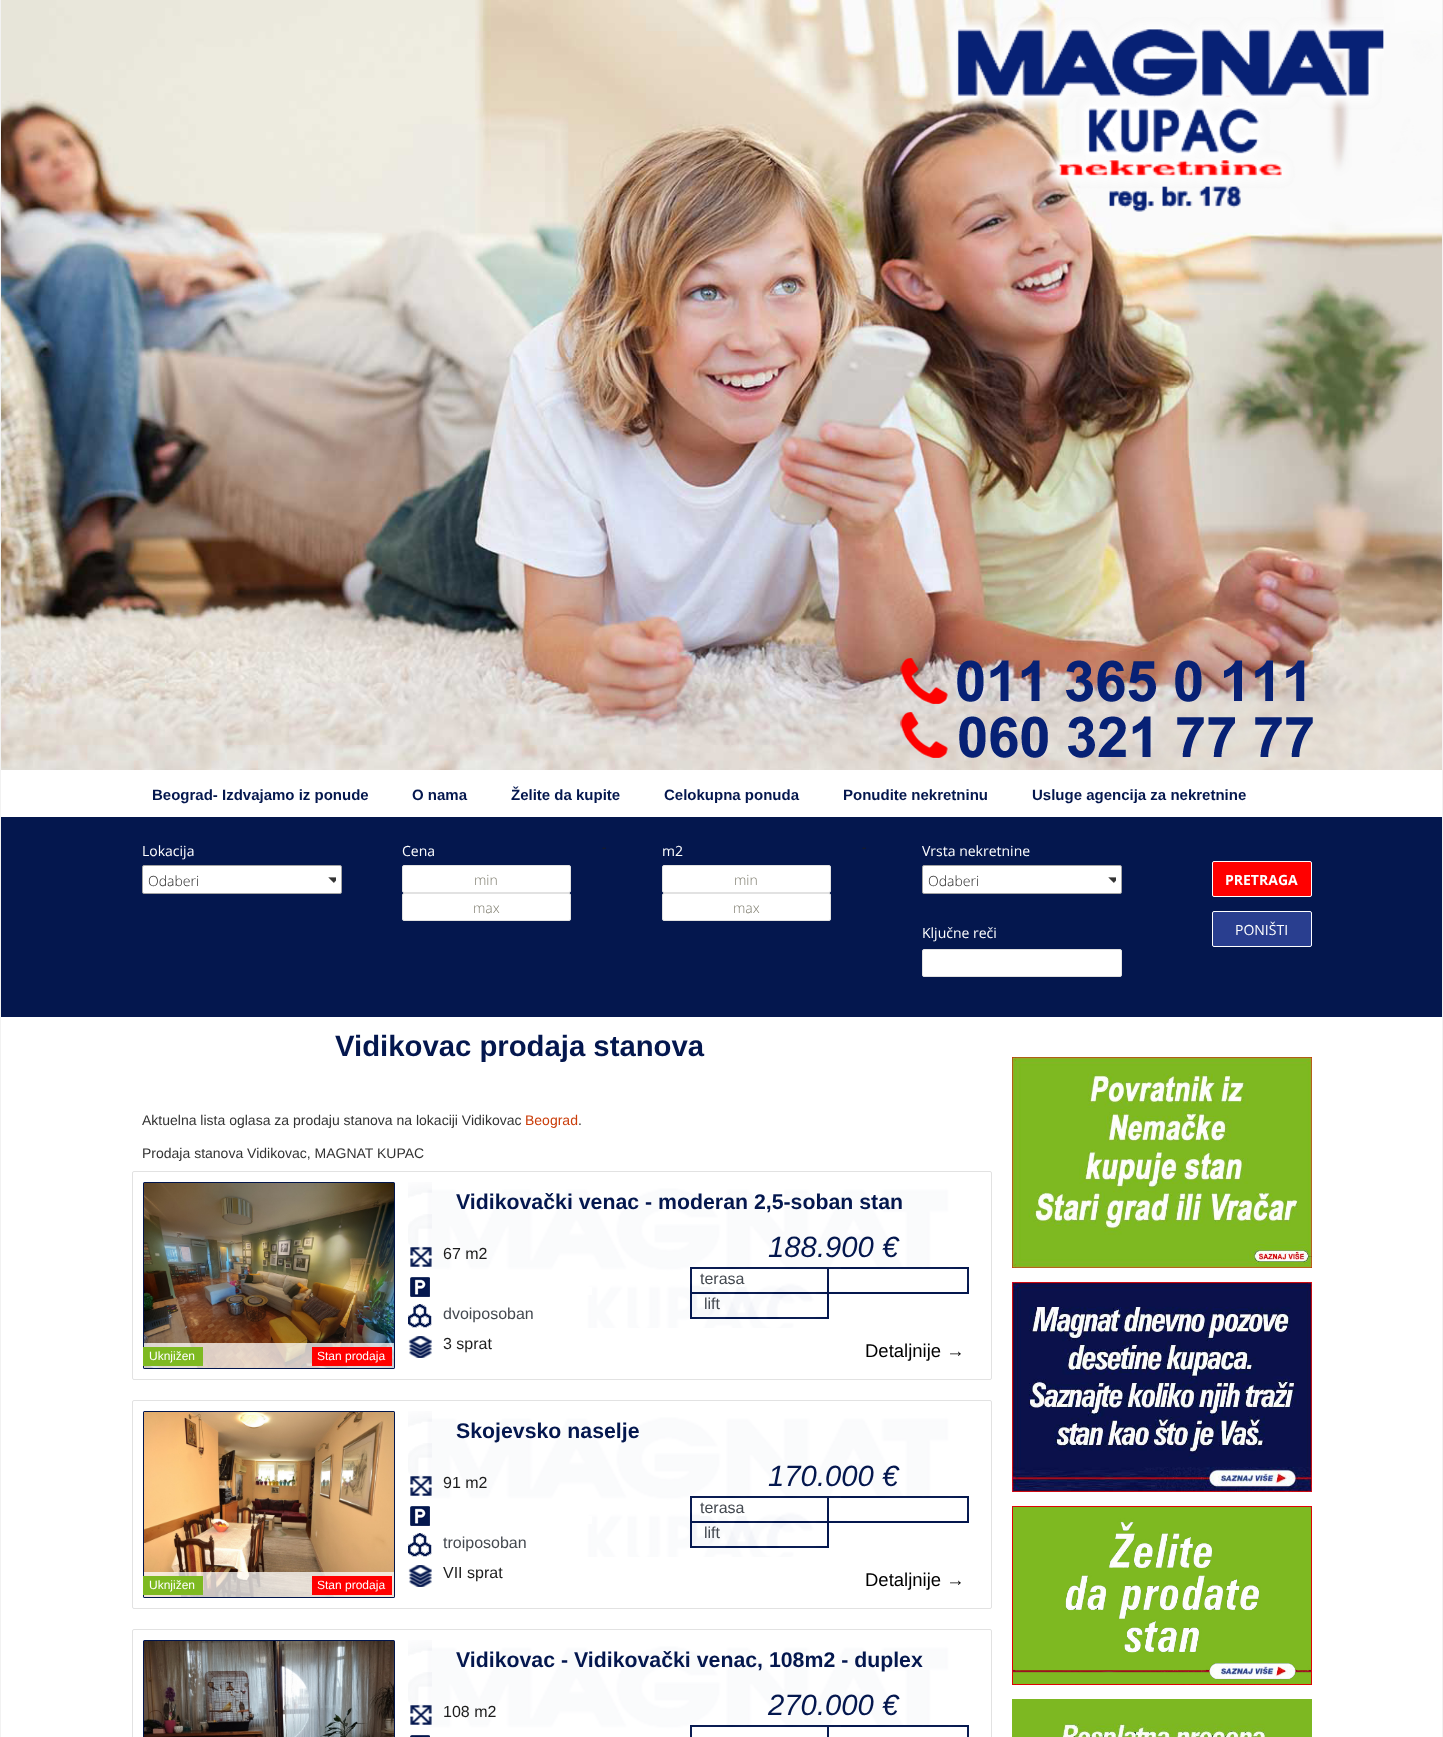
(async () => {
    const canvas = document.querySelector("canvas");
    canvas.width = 1443;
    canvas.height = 1737;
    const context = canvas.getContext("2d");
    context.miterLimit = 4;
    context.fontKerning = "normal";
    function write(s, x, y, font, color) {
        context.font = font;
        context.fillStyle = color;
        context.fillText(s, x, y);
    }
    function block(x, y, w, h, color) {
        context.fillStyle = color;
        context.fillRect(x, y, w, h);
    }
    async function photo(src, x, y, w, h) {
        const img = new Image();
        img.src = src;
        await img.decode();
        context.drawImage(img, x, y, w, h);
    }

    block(0, 0, 1443, 1737, "rgb(255, 255, 255)");
    block(1442, 0, 1, 1737, "rgb(242, 242, 242)");
    block(0, 0, 1, 1737, "rgb(242, 242, 242)");
    await photo("media/1.png", 1, 0, 1441, 770);
    await photo("media/2.png", 945, 17, 439, 195);
    await photo("media/3.png", 900, 658, 413, 100);
    write("Beograd- Izdvajamo iz ponude", 152, 800, "bold 15px Liberation Sans", "rgb(4, 23, 78)");
    write("O nama", 412, 800, "bold 15px Liberation Sans", "rgb(4, 23, 78)");
    write("Želite da kupite", 511, 800, "bold 15px Liberation Sans", "rgb(4, 23, 78)");
    write("Celokupna ponuda", 664, 800, "bold 15px Liberation Sans", "rgb(4, 23, 78)");
    write("Ponudite nekretninu", 843, 800, "bold 15px Liberation Sans", "rgb(4, 23, 78)");
    write("Usluge agencija za nekretnine", 1032, 800, "bold 15px Liberation Sans", "rgb(4, 23, 78)");
    block(1, 817, 1441, 200, "rgb(4, 23, 78)");
    write("Lokacija", 142, 856, "14px Open Sans", "rgb(255, 255, 255)");
    context.beginPath();
    context.roundRect(142.5, 865.5, 199, 28, 1.5);
    context.fill();
    context.strokeStyle = "rgb(164, 164, 164)";
    context.stroke();
    write("Odaberi", 148, 886, "300 14px Open Sans", "rgb(29, 29, 29)");
    await photo("media/4.png", 328, 877, 8, 6);
    write("Cena", 402, 856, "14px Open Sans", "rgb(255, 255, 255)");
    write("-", 602, 852, "italic 14px Open Sans", "rgb(29, 29, 29)");
    context.fillStyle = "rgb(255, 255, 255)";
    context.beginPath();
    context.roundRect(402.5, 865.5, 168, 27, 1.5);
    context.fill();
    context.strokeStyle = "rgb(226, 226, 226)";
    context.stroke();
    write("min", 474, 885, "300 14px Open Sans", "rgb(125, 123, 109)");
    context.fillStyle = "rgb(255, 255, 255)";
    context.beginPath();
    context.roundRect(402.5, 893.5, 168, 27, 1.5);
    context.fill();
    context.stroke();
    write("max", 473, 913, "300 14px Open Sans", "rgb(125, 123, 109)");
    write("m2", 662, 856, "14px Open Sans", "rgb(255, 255, 255)");
    write("-", 862, 852, "italic 14px Open Sans", "rgb(29, 29, 29)");
    context.fillStyle = "rgb(255, 255, 255)";
    context.beginPath();
    context.roundRect(662.5, 865.5, 168, 27, 1.5);
    context.fill();
    context.stroke();
    write("min", 734, 885, "300 14px Open Sans", "rgb(125, 123, 109)");
    context.fillStyle = "rgb(255, 255, 255)";
    context.beginPath();
    context.roundRect(662.5, 893.5, 168, 27, 1.5);
    context.fill();
    context.stroke();
    write("max", 733, 913, "300 14px Open Sans", "rgb(125, 123, 109)");
    write("Vrsta nekretnine", 922, 856, "14px Open Sans", "rgb(255, 255, 255)");
    context.beginPath();
    context.roundRect(922.5, 865.5, 199, 28, 1.5);
    context.fill();
    context.strokeStyle = "rgb(164, 164, 164)";
    context.stroke();
    write("Odaberi", 928, 886, "300 14px Open Sans", "rgb(29, 29, 29)");
    await photo("media/4.png", 1108, 877, 8, 6);
    write("Ključne reči", 922, 938, "14px Open Sans", "rgb(255, 255, 255)");
    context.beginPath();
    context.roundRect(922.5, 949.5, 199, 27, 1.5);
    context.fill();
    context.strokeStyle = "rgb(226, 226, 226)";
    context.stroke();
    context.fillStyle = "rgb(255, 0, 0)";
    context.beginPath();
    context.roundRect(1212.5, 861.5, 99, 35, 1.5);
    context.fill();
    context.strokeStyle = "rgb(255, 255, 255)";
    context.stroke();
    write("PRETRAGA", 1225, 885, "bold 14px Open Sans", "rgb(255, 255, 255)");
    context.fillStyle = "rgb(41, 62, 143)";
    context.beginPath();
    context.roundRect(1212.5, 911.5, 99, 35, 1.5);
    context.fill();
    context.stroke();
    write("PONIŠTI", 1235, 935, "14px Open Sans", "rgb(255, 255, 255)");
    write("Vidikovac prodaja stanova", 335, 1056, "bold 29.3px Liberation Sans", "rgb(4, 23, 78)");
    write("Aktuelna lista oglasa za prodaju stanova na lokaciji Vidikovac", 142, 1125, "14px Liberation Sans", "rgb(51, 51, 51)");
    write("Beograd", 525, 1125, "14px Liberation Sans", "rgb(202, 60, 8)");
    write(".", 578, 1125, "14px Liberation Sans", "rgb(51, 51, 51)");
    write("Prodaja stanova Vidikovac, MAGNAT KUPAC", 142, 1158, "14px Liberation Sans", "rgb(51, 51, 51)");
    await photo("media/5.png", 408, 1182, 561, 146);
    context.beginPath();
    context.roundRect(132.5, 1171.5, 859, 208, 1.5);
    context.strokeStyle = "rgb(226, 226, 226)";
    context.stroke();
    write("Vidikovački venac - moderan 2,5-soban stan", 456, 1209, "bold 21.3px Liberation Sans", "rgb(4, 23, 78)");
    write("188.900 €", 768, 1257, "italic 29.3px Liberation Sans", "rgb(4, 23, 78)");
    await photo("media/6.png", 410, 1247, 22, 20);
    write("67 m2", 443, 1259, "16px Liberation Sans", "rgb(29, 29, 29)");
    await photo("media/7.png", 408, 1336, 24, 22);
    write("3 sprat", 443, 1349, "16px Liberation Sans", "rgb(29, 29, 29)");
    write("terasa", 700, 1284, "16px Liberation Sans", "rgb(68, 73, 80)");
    block(700, 1285, 45, 2, "rgb(255, 255, 255)");
    block(443, 1287, 149, 8, "rgb(255, 255, 255)");
    write("lift", 704, 1309, "16px Liberation Sans", "rgb(68, 73, 80)");
    write("dvoiposoban", 443, 1319, "16px Liberation Sans", "rgb(68, 73, 80)");
    await photo("media/8.png", 143, 1182, 252, 187);
    context.fillStyle = "rgb(1, 21, 76)";
    context.beginPath();
    context.moveTo(145, 1182);
    context.bezierCurveTo(144, 1182, 143, 1183, 143, 1184);
    context.lineTo(143, 1367);
    context.bezierCurveTo(143, 1368, 144, 1369, 145, 1369);
    context.lineTo(393, 1369);
    context.bezierCurveTo(394, 1369, 395, 1368, 395, 1367);
    context.lineTo(395, 1184);
    context.bezierCurveTo(395, 1183, 394, 1182, 393, 1182);
    context.closePath();
    context.fill();
    await photo("media/9.png", 144, 1183, 250, 185);
    block(144, 1343, 250, 25, "rgba(255, 255, 255, 0.75)");
    block(143, 1347, 60, 19, "rgb(126, 185, 33)");
    write("Uknjižen", 149, 1360, "12px Liberation Sans", "rgb(255, 255, 255)");
    block(312, 1347, 80, 19, "rgb(255, 0, 0)");
    write("Stan prodaja", 317, 1360, "12px Liberation Sans", "rgb(255, 255, 255)");
    write("Detaljnije →", 865, 1357, "18.5px Liberation Sans", "rgb(0, 0, 0)");
    await photo("media/5.png", 408, 1411, 561, 146);
    context.beginPath();
    context.roundRect(132.5, 1400.5, 859, 208, 1.5);
    context.stroke();
    write("Skojevsko naselje", 456, 1438, "bold 21.3px Liberation Sans", "rgb(4, 23, 78)");
    write("170.000 €", 768, 1486, "italic 29.3px Liberation Sans", "rgb(4, 23, 78)");
    await photo("media/6.png", 410, 1476, 22, 20);
    write("91 m2", 443, 1488, "16px Liberation Sans", "rgb(29, 29, 29)");
    await photo("media/7.png", 408, 1565, 24, 22);
    write("VII sprat", 443, 1578, "16px Liberation Sans", "rgb(29, 29, 29)");
    write("terasa", 700, 1513, "16px Liberation Sans", "rgb(68, 73, 80)");
    block(700, 1514, 45, 2, "rgb(255, 255, 255)");
    block(443, 1516, 149, 8, "rgb(255, 255, 255)");
    write("lift", 704, 1538, "16px Liberation Sans", "rgb(68, 73, 80)");
    write("troiposoban", 443, 1548, "16px Liberation Sans", "rgb(68, 73, 80)");
    await photo("media/8.png", 143, 1411, 252, 187);
    context.fillStyle = "rgb(1, 21, 76)";
    context.beginPath();
    context.moveTo(145, 1411);
    context.bezierCurveTo(144, 1411, 143, 1412, 143, 1413);
    context.lineTo(143, 1596);
    context.bezierCurveTo(143, 1597, 144, 1598, 145, 1598);
    context.lineTo(393, 1598);
    context.bezierCurveTo(394, 1598, 395, 1597, 395, 1596);
    context.lineTo(395, 1413);
    context.bezierCurveTo(395, 1412, 394, 1411, 393, 1411);
    context.closePath();
    context.fill();
    await photo("media/10.png", 144, 1412, 250, 185);
    block(144, 1572, 250, 25, "rgba(255, 255, 255, 0.75)");
    block(143, 1576, 60, 19, "rgb(126, 185, 33)");
    write("Uknjižen", 149, 1589, "12px Liberation Sans", "rgb(255, 255, 255)");
    block(312, 1576, 80, 19, "rgb(255, 0, 0)");
    write("Stan prodaja", 317, 1589, "12px Liberation Sans", "rgb(255, 255, 255)");
    write("Detaljnije →", 865, 1586, "18.5px Liberation Sans", "rgb(0, 0, 0)");
    await photo("media/11.png", 408, 1640, 561, 97);
    context.beginPath();
    context.roundRect(132.5, 1629.5, 859, 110, 1.5);
    context.stroke();
    await photo("media/12.png", 143, 1640, 252, 2);
    context.fillStyle = "rgb(1, 21, 76)";
    context.beginPath();
    context.moveTo(145, 1640);
    context.bezierCurveTo(144, 1640, 143, 1641, 143, 1642);
    context.lineTo(143, 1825);
    context.bezierCurveTo(143, 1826, 144, 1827, 145, 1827);
    context.lineTo(393, 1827);
    context.bezierCurveTo(394, 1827, 395, 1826, 395, 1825);
    context.lineTo(395, 1642);
    context.bezierCurveTo(395, 1641, 394, 1640, 393, 1640);
    context.closePath();
    context.fill();
    await photo("media/13.png", 144, 1641, 250, 96);
    write("Vidikovac - Vidikovački venac, 108m2 - duplex", 456, 1667, "bold 21.3px Liberation Sans", "rgb(4, 23, 78)");
    write("270.000 €", 768, 1715, "italic 29.3px Liberation Sans", "rgb(4, 23, 78)");
    await photo("media/6.png", 410, 1705, 22, 20);
    write("108 m2", 443, 1717, "16px Liberation Sans", "rgb(29, 29, 29)");
    await photo("media/14.png", 1012, 1057, 300, 211);
    await photo("media/15.png", 1012, 1282, 300, 210);
    await photo("media/16.png", 1012, 1506, 300, 179);
    await photo("media/17.png", 1012, 1699, 300, 38);
})();
